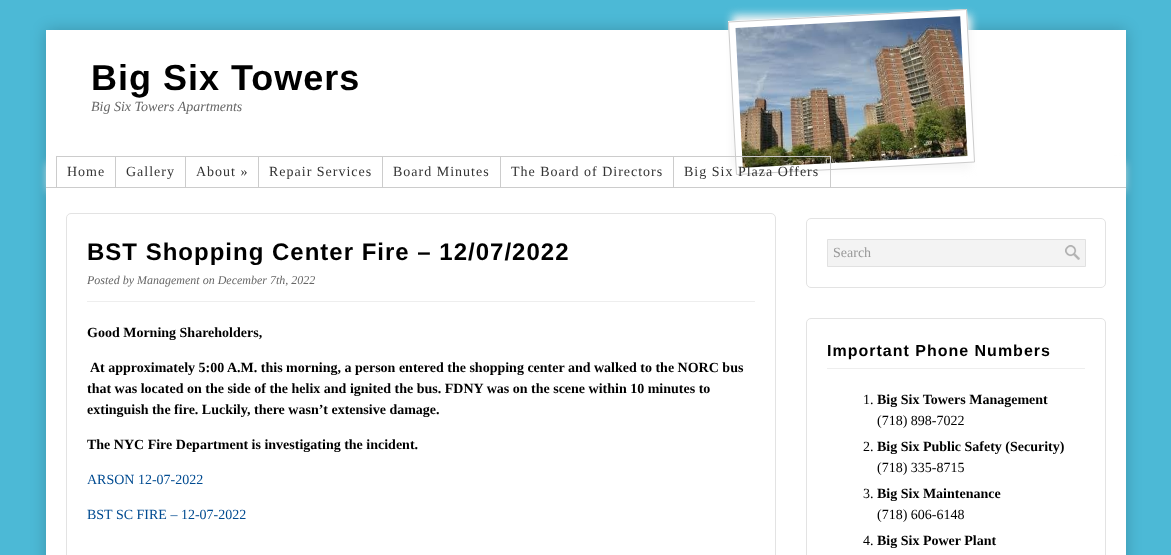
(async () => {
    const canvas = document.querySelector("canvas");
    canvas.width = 1171;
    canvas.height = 555;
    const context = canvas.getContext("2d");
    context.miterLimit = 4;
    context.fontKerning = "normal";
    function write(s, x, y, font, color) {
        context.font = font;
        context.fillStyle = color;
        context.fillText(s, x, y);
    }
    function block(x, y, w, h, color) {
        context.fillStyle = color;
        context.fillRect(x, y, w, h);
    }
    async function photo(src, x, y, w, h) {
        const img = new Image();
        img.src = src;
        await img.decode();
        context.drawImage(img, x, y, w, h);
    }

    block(0, 0, 1171, 555, "rgb(76, 185, 214)");
    context.fillStyle = "rgba(0, 0, 0, 0.2)";
    context.filter = "blur(7.5px)";
    context.beginPath();
    context.rect(46, 30, 1080, 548);
    context.fill();
    context.filter = "none";
    block(46, 30, 1080, 157, "rgb(255, 255, 255)");
    context.letterSpacing = "1px";
    write("Big Six Towers", 91, 90, "bold 36px Liberation Sans", "rgb(0, 0, 0)");
    context.letterSpacing = "0px";
    write("Big Six Towers Apartments", 91, 111, "italic 14px Liberation Serif", "rgb(102, 102, 102)");
    context.fillStyle = "rgb(245, 245, 245)";
    context.filter = "blur(4px)";
    context.beginPath();
    context.rect(732, 15, 239, 154);
    context.fill();
    context.filter = "none";
    context.save();
    context.beginPath();
    context.moveTo(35, 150);
    context.lineTo(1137, 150);
    context.lineTo(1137, 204);
    context.lineTo(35, 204);
    context.closePath();
    context.moveTo(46, 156);
    context.lineTo(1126, 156);
    context.lineTo(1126, 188);
    context.lineTo(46, 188);
    context.closePath();
    context.clip("evenodd");
    context.filter = "blur(4px)";
    context.beginPath();
    context.rect(48, 163, 1076, 28);
    context.fill();
    context.filter = "none";
    context.restore();
    context.fillStyle = "rgb(255, 255, 255)";
    context.beginPath();
    context.moveTo(728, 21);
    context.lineTo(967, 9);
    context.lineTo(975, 162);
    context.lineTo(736, 175);
    context.closePath();
    context.fill();
    context.beginPath();
    context.moveTo(728.5, 22);
    context.lineTo(966.5, 9.5);
    context.lineTo(974.5, 162);
    context.lineTo(736.5, 174.5);
    context.closePath();
    context.strokeStyle = "rgb(204, 204, 204)";
    context.stroke();
    await photo("media/1.png", 735, 16, 233, 152);
    block(46, 187, 1080, 1, "rgb(204, 204, 204)");
    block(56, 156, 1, 31, "rgb(204, 204, 204)");
    block(57, 156, 774, 1, "rgb(204, 204, 204)");
    block(115, 156, 1, 31, "rgb(204, 204, 204)");
    context.letterSpacing = "1px";
    write("Home", 67, 176, "14px Liberation Serif", "rgb(51, 51, 51)");
    block(185, 156, 1, 31, "rgb(204, 204, 204)");
    write("Gallery", 126, 176, "14px Liberation Serif", "rgb(51, 51, 51)");
    block(258, 156, 1, 31, "rgb(204, 204, 204)");
    write("About »", 196, 176, "14px Liberation Serif", "rgb(51, 51, 51)");
    block(382, 156, 1, 31, "rgb(204, 204, 204)");
    write("Repair Services", 269, 176, "14px Liberation Serif", "rgb(51, 51, 51)");
    block(500, 156, 1, 31, "rgb(204, 204, 204)");
    write("Board Minutes", 393, 176, "14px Liberation Serif", "rgb(51, 51, 51)");
    block(673, 156, 1, 31, "rgb(204, 204, 204)");
    write("The Board of Directors", 511, 176, "14px Liberation Serif", "rgb(51, 51, 51)");
    block(830, 156, 1, 31, "rgb(204, 204, 204)");
    write("Big Six Plaza Offers", 684, 176, "14px Liberation Serif", "rgb(51, 51, 51)");
    block(46, 188, 1080, 367, "rgb(255, 255, 255)");
    context.beginPath();
    context.roundRect(66.5, 213.5, 709, 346, 4.5);
    context.strokeStyle = "rgb(227, 227, 227)";
    context.stroke();
    write("BST Shopping Center Fire – 12/07/2022", 87, 260, "bold 24px Liberation Sans", "rgb(0, 0, 0)");
    block(87, 301, 668, 1, "rgb(238, 238, 238)");
    context.letterSpacing = "0px";
    write("Posted by Management on December 7th, 2022", 87, 284, "italic 12px Liberation Serif", "rgb(102, 102, 102)");
    write("Good Morning Shareholders,", 87, 337, "bold 14px Liberation Serif", "rgb(0, 0, 0)");
    write("At approximately 5:00 A.M. this morning, a person entered the shopping center and walked to the NORC bus", 90, 372, "bold 14px Liberation Serif", "rgb(0, 0, 0)");
    write("that was located on the side of the helix and ignited the bus. FDNY was on the scene within 10 minutes to", 87, 393, "bold 14px Liberation Serif", "rgb(0, 0, 0)");
    write("extinguish the fire. Luckily, there wasn’t extensive damage.", 87, 414, "bold 14px Liberation Serif", "rgb(0, 0, 0)");
    write("The NYC Fire Department is investigating the incident.", 87, 449, "bold 14px Liberation Serif", "rgb(0, 0, 0)");
    write("ARSON 12-07-2022", 87, 484, "14px Liberation Serif", "rgb(0, 75, 145)");
    write("BST SC FIRE – 12-07-2022", 87, 519, "14px Liberation Serif", "rgb(0, 75, 145)");
    context.beginPath();
    context.roundRect(806.5, 218.5, 299, 69, 4.5);
    context.stroke();
    context.fillStyle = "rgb(243, 243, 243)";
    context.beginPath();
    context.rect(827.5, 239.5, 258, 27);
    context.fill();
    context.strokeStyle = "rgb(225, 225, 225)";
    context.stroke();
    write("Search", 833, 257, "14px Liberation Serif", "rgb(153, 153, 153)");
    await photo("media/2.png", 1065, 245, 15, 15);
    context.beginPath();
    context.roundRect(806.5, 318.5, 299, 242, 4.5);
    context.strokeStyle = "rgb(227, 227, 227)";
    context.stroke();
    block(827, 368, 258, 1, "rgb(238, 238, 238)");
    context.letterSpacing = "1px";
    write("Important Phone Numbers", 827, 356, "bold 16px Liberation Sans", "rgb(0, 0, 0)");
    context.letterSpacing = "0px";
    write("1.", 863, 404, "14px Liberation Serif", "rgb(0, 0, 0)");
    write("Big Six Towers Management", 877, 404, "bold 14px Liberation Serif", "rgb(0, 0, 0)");
    write("(718) 898-7022", 877, 425, "14px Liberation Serif", "rgb(0, 0, 0)");
    write("2.", 863, 451, "14px Liberation Serif", "rgb(0, 0, 0)");
    write("Big Six Public Safety (Security)", 877, 451, "bold 14px Liberation Serif", "rgb(0, 0, 0)");
    write("(718) 335-8715", 877, 472, "14px Liberation Serif", "rgb(0, 0, 0)");
    write("3.", 863, 498, "14px Liberation Serif", "rgb(0, 0, 0)");
    write("Big Six Maintenance", 877, 498, "bold 14px Liberation Serif", "rgb(0, 0, 0)");
    write("(718) 606-6148", 877, 519, "14px Liberation Serif", "rgb(0, 0, 0)");
    write("4.", 863, 545, "14px Liberation Serif", "rgb(0, 0, 0)");
    write("Big Six Power Plant", 877, 545, "bold 14px Liberation Serif", "rgb(0, 0, 0)");
})();
